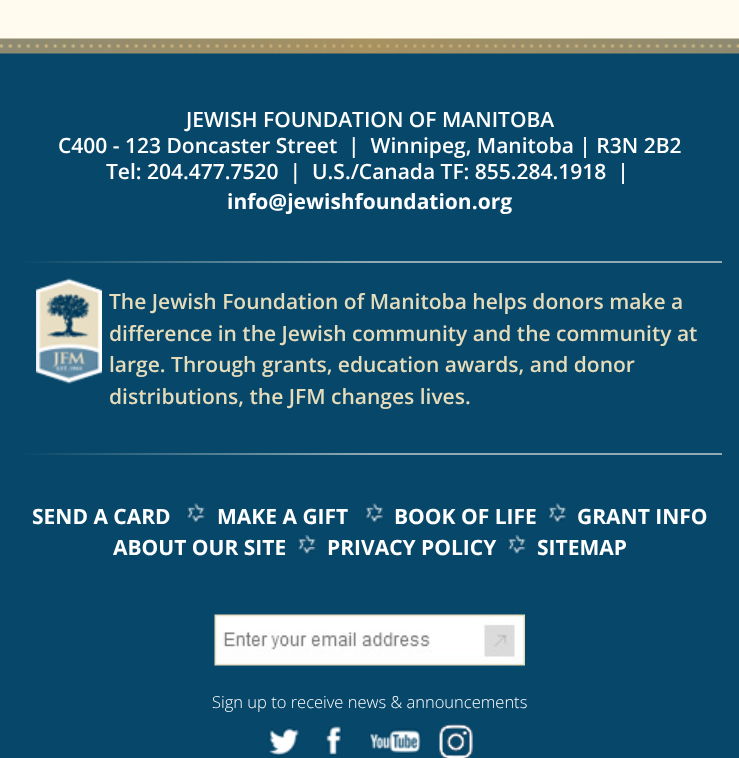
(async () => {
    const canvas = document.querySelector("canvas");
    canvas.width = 739;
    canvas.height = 758;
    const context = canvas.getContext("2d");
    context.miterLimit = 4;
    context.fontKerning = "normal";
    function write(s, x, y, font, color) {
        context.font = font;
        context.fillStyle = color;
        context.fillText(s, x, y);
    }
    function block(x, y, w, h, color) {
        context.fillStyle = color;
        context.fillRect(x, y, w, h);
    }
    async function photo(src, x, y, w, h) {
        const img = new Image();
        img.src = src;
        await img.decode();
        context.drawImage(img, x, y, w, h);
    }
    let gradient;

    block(0, 0, 739, 758, "rgb(255, 252, 239)");
    block(0, 53, 739, 705, "rgb(7, 71, 105)");
    await photo("media/1.png", 0, 38, 739, 16);
    write("JEWISH FOUNDATION OF MANITOBA", 186, 127, "600 21px Open Sans", "rgb(255, 255, 255)");
    write("C400 - 123 Doncaster Street  |  Winnipeg, Manitoba | R3N 2B2", 58, 153, "600 21px Open Sans", "rgb(255, 255, 255)");
    write("Tel: 204.477.7520  |  U.S./Canada TF: 855.284.1918  |", 106, 179, "600 21px Open Sans", "rgb(255, 255, 255)");
    write("info@jewishfoundation.org", 227, 209, "bold 21px Open Sans", "rgb(255, 255, 255)");
    gradient = context.createLinearGradient(722, 262, 18, 262);
    gradient.addColorStop(0.5, "rgb(143, 171, 180)");
    gradient.addColorStop(1, "rgb(7, 71, 105)");
    context.fillStyle = gradient;
    context.fillRect(18, 261, 704, 2);
    await photo("media/2.png", 36, 277, 66, 107);
    write("The Jewish Foundation of Manitoba helps donors make a", 109, 309, "600 21px Open Sans", "rgb(229, 220, 187)");
    write("difference in the Jewish community and the community at", 109, 341, "600 21px Open Sans", "rgb(229, 220, 187)");
    write("large. Through grants, education awards, and donor", 109, 372, "600 21px Open Sans", "rgb(229, 220, 187)");
    write("distributions, the JFM changes lives.", 109, 404, "600 21px Open Sans", "rgb(229, 220, 187)");
    gradient = context.createLinearGradient(722, 454, 18, 454);
    gradient.addColorStop(0.5, "rgb(143, 171, 180)");
    gradient.addColorStop(1, "rgb(7, 71, 105)");
    context.fillStyle = gradient;
    context.fillRect(18, 453, 704, 2);
    write("SEND A CARD", 32, 524, "bold 21px Open Sans", "rgb(255, 255, 255)");
    await photo("media/3.png", 186, 503, 20, 19);
    write("MAKE A GIFT", 217, 524, "bold 21px Open Sans", "rgb(255, 255, 255)");
    await photo("media/4.png", 364, 503, 20, 19);
    write("BOOK OF LIFE", 394, 524, "bold 21px Open Sans", "rgb(255, 255, 255)");
    await photo("media/4.png", 547, 503, 20, 19);
    write("GRANT INFO", 577, 524, "bold 21px Open Sans", "rgb(255, 255, 255)");
    write("ABOUT OUR SITE", 113, 555, "bold 21px Open Sans", "rgb(255, 255, 255)");
    await photo("media/5.png", 297, 535, 20, 19);
    write("PRIVACY POLICY", 327, 555, "bold 21px Open Sans", "rgb(255, 255, 255)");
    await photo("media/6.png", 507, 535, 20, 19);
    write("SITEMAP", 537, 555, "bold 21px Open Sans", "rgb(255, 255, 255)");
    await photo("media/7.png", 214, 614, 311, 52);
    write("Sign up to receive news & announcements", 212, 708, "300 16.5px Open Sans", "rgb(255, 255, 255)");
    await photo("media/8.png", 268, 727, 31, 30);
    await photo("media/9.png", 326, 726, 16, 30);
    await photo("media/10.png", 369, 728, 53, 26);
    await photo("media/11.png", 439, 723, 34, 35);
})();
